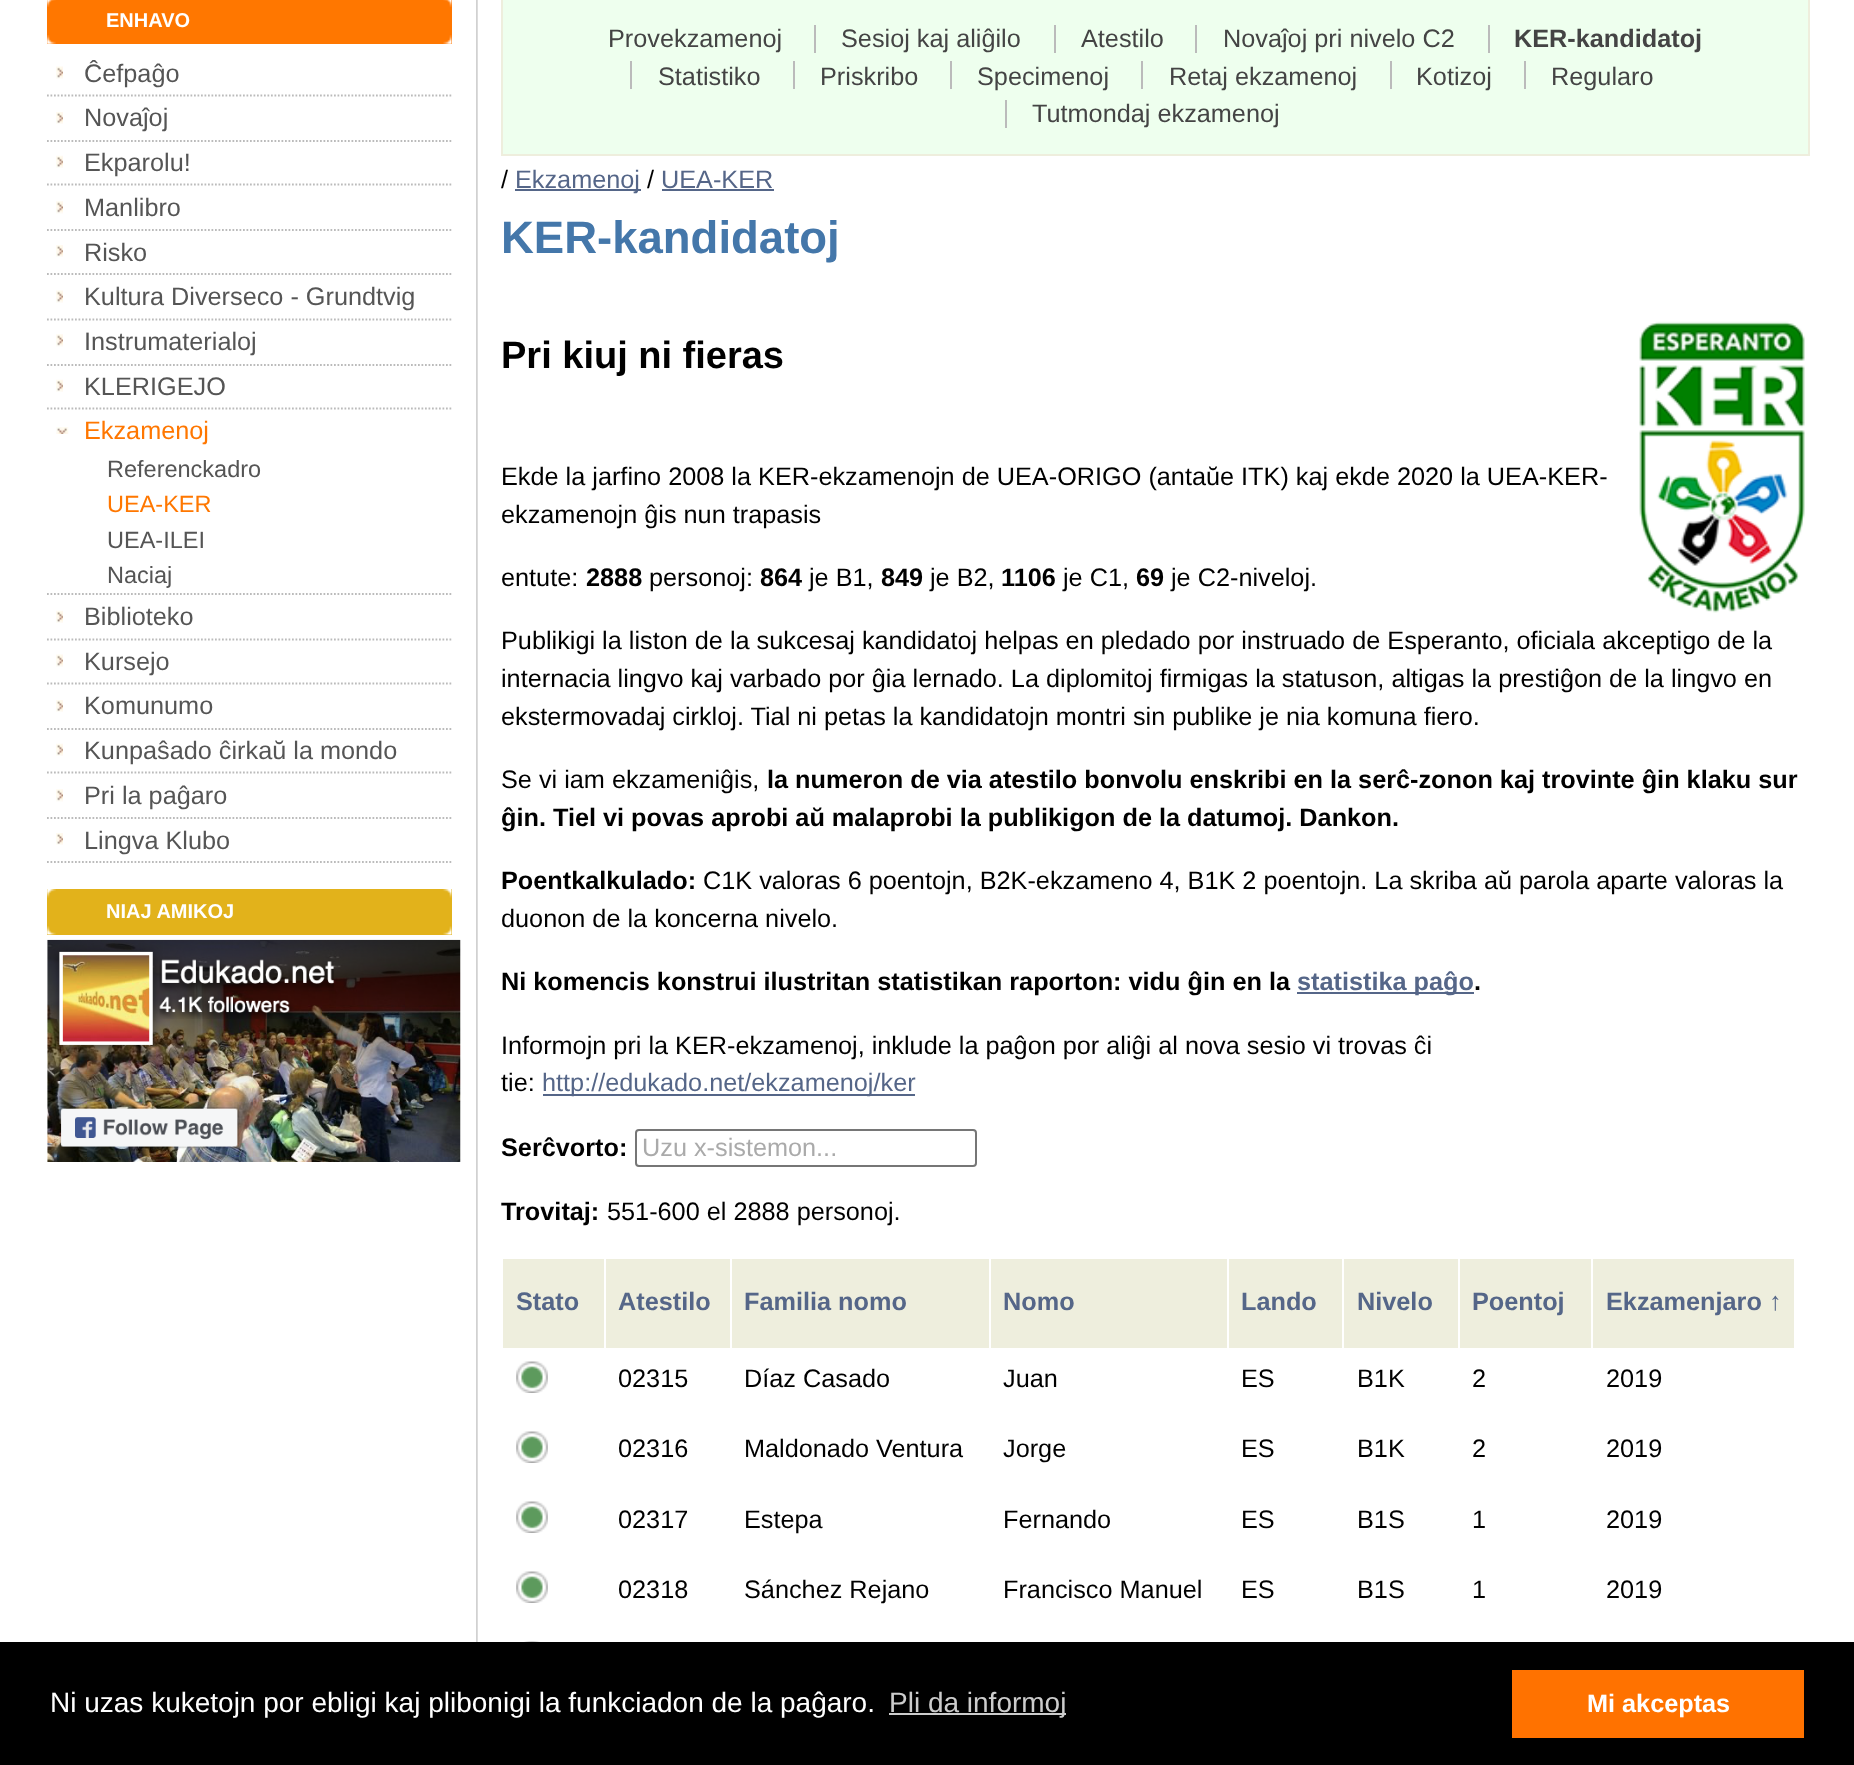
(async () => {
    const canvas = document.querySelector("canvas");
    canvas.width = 1854;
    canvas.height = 1765;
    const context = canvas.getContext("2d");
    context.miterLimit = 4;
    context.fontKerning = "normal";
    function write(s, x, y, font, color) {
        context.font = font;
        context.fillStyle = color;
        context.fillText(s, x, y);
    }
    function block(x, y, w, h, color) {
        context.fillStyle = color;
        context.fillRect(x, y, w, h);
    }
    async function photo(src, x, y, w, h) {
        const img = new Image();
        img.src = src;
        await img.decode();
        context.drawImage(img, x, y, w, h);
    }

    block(0, 0, 1854, 1765, "rgb(255, 255, 255)");
    await photo("media/1.png", 476, 0, 2, 1642);
    block(47, 0, 405, 44, "rgb(255, 119, 0)");
    await photo("media/2.png", 47, 0, 9, 7);
    await photo("media/3.png", 443, 0, 9, 7);
    write("ENHAVO", 106, 27, "bold 20px Liberation Sans", "rgb(255, 255, 255)");
    await photo("media/4.png", 47, 35, 9, 9);
    await photo("media/5.png", 443, 35, 9, 9);
    context.beginPath();
    context.moveTo(47, 95.5);
    context.lineTo(451.5, 95.5);
    context.strokeStyle = "rgb(187, 187, 187)";
    context.lineWidth = 1.8;
    context.setLineDash([1.75, 1.75]);
    context.stroke();
    await photo("media/6.png", 56, 66, 7, 13);
    write("Ĉefpaĝo", 84, 82, "25.27px Liberation Sans", "rgb(85, 85, 85)");
    context.beginPath();
    context.moveTo(47, 141);
    context.lineTo(451.5, 141);
    context.stroke();
    await photo("media/7.png", 56, 112, 7, 12);
    write("Novaĵoj", 84, 126, "25.27px Liberation Sans", "rgb(85, 85, 85)");
    context.beginPath();
    context.moveTo(47, 184.5);
    context.lineTo(451.5, 184.5);
    context.stroke();
    await photo("media/8.png", 56, 155, 7, 13);
    write("Ekparolu!", 84, 171, "25.27px Liberation Sans", "rgb(85, 85, 85)");
    context.beginPath();
    context.moveTo(47, 230);
    context.lineTo(451.5, 230);
    context.stroke();
    await photo("media/9.png", 56, 201, 7, 13);
    write("Manlibro", 84, 216, "25.27px Liberation Sans", "rgb(85, 85, 85)");
    context.beginPath();
    context.moveTo(47, 274);
    context.lineTo(451.5, 274);
    context.stroke();
    await photo("media/7.png", 56, 245, 7, 12);
    write("Risko", 84, 261, "25.27px Liberation Sans", "rgb(85, 85, 85)");
    context.beginPath();
    context.moveTo(47, 319.5);
    context.lineTo(451.5, 319.5);
    context.stroke();
    await photo("media/6.png", 56, 290, 7, 13);
    write("Kultura Diverseco - Grundtvig", 84, 305, "25.27px Liberation Sans", "rgb(85, 85, 85)");
    context.beginPath();
    context.moveTo(47, 365);
    context.lineTo(451.5, 365);
    context.stroke();
    await photo("media/9.png", 56, 334, 7, 13);
    write("Instrumaterialoj", 84, 350, "25.27px Liberation Sans", "rgb(85, 85, 85)");
    context.beginPath();
    context.moveTo(47, 408.5);
    context.lineTo(451.5, 408.5);
    context.stroke();
    await photo("media/8.png", 56, 379, 7, 13);
    write("KLERIGEJO", 84, 395, "25.27px Liberation Sans", "rgb(85, 85, 85)");
    context.beginPath();
    context.moveTo(47, 594);
    context.lineTo(451.5, 594);
    context.stroke();
    await photo("media/10.png", 56, 427, 13, 7);
    write("Ekzamenoj", 84, 439, "25.27px Liberation Sans", "rgb(255, 119, 0)");
    write("Referenckadro", 107, 477, "23.5px Liberation Sans", "rgb(85, 85, 85)");
    write("UEA-KER", 107, 512, "23.5px Liberation Sans", "rgb(255, 119, 0)");
    write("UEA-ILEI", 107, 548, "23.5px Liberation Sans", "rgb(85, 85, 85)");
    write("Naciaj", 107, 583, "23.5px Liberation Sans", "rgb(85, 85, 85)");
    context.beginPath();
    context.moveTo(47, 639.5);
    context.lineTo(451.5, 639.5);
    context.stroke();
    await photo("media/8.png", 56, 610, 7, 13);
    write("Biblioteko", 84, 625, "25.27px Liberation Sans", "rgb(85, 85, 85)");
    context.beginPath();
    context.moveTo(47, 683.5);
    context.lineTo(451.5, 683.5);
    context.stroke();
    await photo("media/6.png", 56, 654, 7, 13);
    write("Kursejo", 84, 670, "25.27px Liberation Sans", "rgb(85, 85, 85)");
    context.beginPath();
    context.moveTo(47, 729);
    context.lineTo(451.5, 729);
    context.stroke();
    await photo("media/7.png", 56, 700, 7, 12);
    write("Komunumo", 84, 714, "25.27px Liberation Sans", "rgb(85, 85, 85)");
    context.beginPath();
    context.moveTo(47, 772.5);
    context.lineTo(451.5, 772.5);
    context.stroke();
    await photo("media/8.png", 56, 743, 7, 13);
    write("Kunpaŝado ĉirkaŭ la mondo", 84, 759, "25.27px Liberation Sans", "rgb(85, 85, 85)");
    context.beginPath();
    context.moveTo(47, 818);
    context.lineTo(451.5, 818);
    context.stroke();
    await photo("media/9.png", 56, 789, 7, 13);
    write("Pri la paĝaro", 84, 804, "25.27px Liberation Sans", "rgb(85, 85, 85)");
    context.beginPath();
    context.moveTo(47, 862);
    context.lineTo(451.5, 862);
    context.stroke();
    await photo("media/7.png", 56, 833, 7, 12);
    write("Lingva Klubo", 84, 849, "25.27px Liberation Sans", "rgb(85, 85, 85)");
    block(47, 889, 405, 46, "rgb(226, 178, 27)");
    await photo("media/11.png", 47, 889, 9, 9);
    await photo("media/12.png", 442, 889, 10, 9);
    write("NIAJ AMIKOJ", 106, 918, "bold 20px Liberation Sans", "rgb(255, 255, 255)");
    await photo("media/13.png", 47, 926, 9, 9);
    await photo("media/14.png", 443, 926, 9, 9);
    await photo("media/15.png", 47, 939, 414, 223);
    context.fillStyle = "rgb(238, 255, 238)";
    context.beginPath();
    context.rect(502, -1, 1307, 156);
    context.fill();
    context.strokeStyle = "rgb(238, 238, 221)";
    context.lineWidth = 2;
    context.setLineDash([]);
    context.stroke();
    write("Provekzamenoj", 608, 47, "25.27px Liberation Sans", "rgb(68, 68, 68)");
    write("Sesioj kaj aliĝilo", 841, 47, "25.27px Liberation Sans", "rgb(68, 68, 68)");
    block(814, 25, 2, 28, "rgb(187, 187, 187)");
    write("Atestilo", 1081, 47, "25.27px Liberation Sans", "rgb(68, 68, 68)");
    block(1054, 25, 2, 28, "rgb(187, 187, 187)");
    write("Novaĵoj pri nivelo C2", 1223, 47, "25.27px Liberation Sans", "rgb(68, 68, 68)");
    block(1195, 25, 2, 28, "rgb(187, 187, 187)");
    write("KER-kandidatoj", 1514, 47, "bold 25.27px Liberation Sans", "rgb(68, 68, 68)");
    block(1488, 25, 2, 28, "rgb(187, 187, 187)");
    write("Statistiko", 658, 85, "25.27px Liberation Sans", "rgb(68, 68, 68)");
    block(630, 61, 2, 28, "rgb(187, 187, 187)");
    write("Priskribo", 820, 85, "25.27px Liberation Sans", "rgb(68, 68, 68)");
    block(793, 61, 2, 28, "rgb(187, 187, 187)");
    write("Specimenoj", 977, 85, "25.27px Liberation Sans", "rgb(68, 68, 68)");
    block(950, 61, 2, 28, "rgb(187, 187, 187)");
    write("Retaj ekzamenoj", 1169, 85, "25.27px Liberation Sans", "rgb(68, 68, 68)");
    block(1141, 61, 2, 28, "rgb(187, 187, 187)");
    write("Kotizoj", 1416, 85, "25.27px Liberation Sans", "rgb(68, 68, 68)");
    block(1390, 61, 2, 28, "rgb(187, 187, 187)");
    write("Regularo", 1551, 85, "25.27px Liberation Sans", "rgb(68, 68, 68)");
    block(1524, 61, 2, 28, "rgb(187, 187, 187)");
    write("Tutmondaj ekzamenoj", 1032, 122, "25.27px Liberation Sans", "rgb(68, 68, 68)");
    block(1005, 100, 2, 28, "rgb(187, 187, 187)");
    write("/", 501, 188, "25.27px Liberation Sans", "rgb(0, 0, 0)");
    block(515, 189, 126, 2, "rgb(85, 102, 136)");
    write("Ekzamenoj", 515, 188, "25.27px Liberation Sans", "rgb(85, 102, 136)");
    write("/", 647, 188, "25.27px Liberation Sans", "rgb(0, 0, 0)");
    write("UEA-KER", 661, 188, "25.27px Liberation Sans", "rgb(85, 102, 136)");
    block(662, 189, 112, 2, "rgb(85, 102, 136)");
    write("KER-kandidatoj", 501, 253, "bold 45.5px Liberation Sans", "rgb(68, 119, 170)");
    write("Pri kiuj ni fieras", 501, 368, "bold 38px Liberation Sans", "rgb(0, 0, 0)");
    await photo("media/16.png", 1639, 321, 166, 292);
    write("Ekde la jarfino 2008 la KER-ekzamenojn de UEA-ORIGO (antaŭe ITK) kaj ekde 2020 la UEA-KER-", 501, 485, "25.27px Liberation Sans", "rgb(0, 0, 0)");
    write("ekzamenojn ĝis nun trapasis", 501, 523, "25.27px Liberation Sans", "rgb(0, 0, 0)");
    write("entute:", 501, 586, "25.27px Liberation Sans", "rgb(0, 0, 0)");
    write("2888", 586, 586, "bold 25.27px Liberation Sans", "rgb(0, 0, 0)");
    write("personoj:", 649, 586, "25.27px Liberation Sans", "rgb(0, 0, 0)");
    write("864", 760, 586, "bold 25.27px Liberation Sans", "rgb(0, 0, 0)");
    write("je B1,", 809, 586, "25.27px Liberation Sans", "rgb(0, 0, 0)");
    write("849", 881, 586, "bold 25.27px Liberation Sans", "rgb(0, 0, 0)");
    write("je B2,", 930, 586, "25.27px Liberation Sans", "rgb(0, 0, 0)");
    write("1106", 1001, 586, "bold 25.27px Liberation Sans", "rgb(0, 0, 0)");
    write("je C1,", 1063, 586, "25.27px Liberation Sans", "rgb(0, 0, 0)");
    write("69", 1136, 586, "bold 25.27px Liberation Sans", "rgb(0, 0, 0)");
    write("je C2-niveloj.", 1171, 586, "25.27px Liberation Sans", "rgb(0, 0, 0)");
    write("Publikigi la liston de la sukcesaj kandidatoj helpas en pledado por instruado de Esperanto, oficiala akceptigo de la", 501, 649, "25.27px Liberation Sans", "rgb(0, 0, 0)");
    write("internacia lingvo kaj varbado por ĝia lernado. La diplomitoj firmigas la statuson, altigas la prestiĝon de la lingvo en", 501, 687, "25.27px Liberation Sans", "rgb(0, 0, 0)");
    write("ekstermovadaj cirkloj. Tial ni petas la kandidatojn montri sin publike je nia komuna fiero.", 501, 725, "25.27px Liberation Sans", "rgb(0, 0, 0)");
    write("Se vi iam ekzameniĝis,", 501, 788, "25.27px Liberation Sans", "rgb(0, 0, 0)");
    write("la numeron de via atestilo bonvolu enskribi en la serĉ-zonon kaj trovinte ĝin klaku sur", 767, 788, "bold 25.27px Liberation Sans", "rgb(0, 0, 0)");
    write("ĝin. Tiel vi povas aprobi aŭ malaprobi la publikigon de la datumoj. Dankon.", 501, 826, "bold 25.27px Liberation Sans", "rgb(0, 0, 0)");
    write("Poentkalkulado:", 501, 889, "bold 25.27px Liberation Sans", "rgb(0, 0, 0)");
    write("C1K valoras 6 poentojn, B2K-ekzameno 4, B1K 2 poentojn. La skriba aŭ parola aparte valoras la", 703, 889, "25.27px Liberation Sans", "rgb(0, 0, 0)");
    write("duonon de la koncerna nivelo.", 501, 927, "25.27px Liberation Sans", "rgb(0, 0, 0)");
    write("Ni komencis konstrui ilustritan statistikan raporton: vidu ĝin en la", 501, 990, "bold 25.27px Liberation Sans", "rgb(0, 0, 0)");
    block(1297, 992, 177, 2, "rgb(85, 102, 136)");
    write("statistika paĝo", 1297, 990, "bold 25.27px Liberation Sans", "rgb(85, 102, 136)");
    write(".", 1474, 990, "bold 25.27px Liberation Sans", "rgb(0, 0, 0)");
    write("Informojn pri la KER-ekzamenoj, inklude la paĝon por aliĝi al nova sesio vi trovas ĉi", 501, 1054, "25.27px Liberation Sans", "rgb(0, 0, 0)");
    write("tie:", 501, 1091, "25.27px Liberation Sans", "rgb(0, 0, 0)");
    block(543, 1094, 372, 2, "rgb(85, 102, 136)");
    write("http://edukado.net/ekzamenoj/ker", 542, 1091, "25.27px Liberation Sans", "rgb(85, 102, 136)");
    write("Serĉvorto:", 501, 1156, "bold 25.27px Liberation Sans", "rgb(0, 0, 0)");
    context.beginPath();
    context.roundRect(636, 1130, 340, 36, 3);
    context.strokeStyle = "rgb(118, 118, 118)";
    context.stroke();
    write("Uzu x-sistemon...", 642, 1156, "25.27px Liberation Sans", "rgb(170, 170, 170)");
    write("Trovitaj:", 501, 1220, "bold 25.27px Liberation Sans", "rgb(0, 0, 0)");
    write("551-600 el 2888 personoj.", 607, 1220, "25.27px Liberation Sans", "rgb(0, 0, 0)");
    block(503, 1259, 101, 89, "rgb(238, 238, 221)");
    write("Stato", 516, 1310, "bold 25.27px Liberation Sans", "rgb(85, 102, 136)");
    block(606, 1259, 124, 89, "rgb(238, 238, 221)");
    write("Atestilo", 618, 1310, "bold 25.27px Liberation Sans", "rgb(85, 102, 136)");
    block(732, 1259, 257, 89, "rgb(238, 238, 221)");
    write("Familia nomo", 744, 1310, "bold 25.27px Liberation Sans", "rgb(85, 102, 136)");
    block(991, 1259, 236, 89, "rgb(238, 238, 221)");
    write("Nomo", 1003, 1310, "bold 25.27px Liberation Sans", "rgb(85, 102, 136)");
    block(1229, 1259, 113, 89, "rgb(238, 238, 221)");
    write("Lando", 1241, 1310, "bold 25.27px Liberation Sans", "rgb(85, 102, 136)");
    block(1344, 1259, 114, 89, "rgb(238, 238, 221)");
    write("Nivelo", 1357, 1310, "bold 25.27px Liberation Sans", "rgb(85, 102, 136)");
    block(1460, 1259, 131, 89, "rgb(238, 238, 221)");
    write("Poentoj", 1472, 1310, "bold 25.27px Liberation Sans", "rgb(85, 102, 136)");
    block(1593, 1259, 201, 89, "rgb(238, 238, 221)");
    write("Ekzamenjaro ↑", 1606, 1310, "bold 25.27px Liberation Sans", "rgb(85, 102, 136)");
    await photo("media/17.png", 516, 1361, 32, 32);
    write("02315", 618, 1387, "25.27px Liberation Sans", "rgb(0, 0, 0)");
    write("Díaz Casado", 744, 1387, "25.27px Liberation Sans", "rgb(0, 0, 0)");
    write("Juan", 1003, 1387, "25.27px Liberation Sans", "rgb(0, 0, 0)");
    write("ES", 1241, 1387, "25.27px Liberation Sans", "rgb(0, 0, 0)");
    write("B1K", 1357, 1387, "25.27px Liberation Sans", "rgb(0, 0, 0)");
    write("2", 1472, 1387, "25.27px Liberation Sans", "rgb(0, 0, 0)");
    write("2019", 1606, 1387, "25.27px Liberation Sans", "rgb(0, 0, 0)");
    await photo("media/17.png", 516, 1431, 32, 32);
    write("02316", 618, 1457, "25.27px Liberation Sans", "rgb(0, 0, 0)");
    write("Maldonado Ventura", 744, 1457, "25.27px Liberation Sans", "rgb(0, 0, 0)");
    write("Jorge", 1003, 1457, "25.27px Liberation Sans", "rgb(0, 0, 0)");
    write("ES", 1241, 1457, "25.27px Liberation Sans", "rgb(0, 0, 0)");
    write("B1K", 1357, 1457, "25.27px Liberation Sans", "rgb(0, 0, 0)");
    write("2", 1472, 1457, "25.27px Liberation Sans", "rgb(0, 0, 0)");
    write("2019", 1606, 1457, "25.27px Liberation Sans", "rgb(0, 0, 0)");
    await photo("media/17.png", 516, 1501, 32, 32);
    write("02317", 618, 1528, "25.27px Liberation Sans", "rgb(0, 0, 0)");
    write("Estepa", 744, 1528, "25.27px Liberation Sans", "rgb(0, 0, 0)");
    write("Fernando", 1003, 1528, "25.27px Liberation Sans", "rgb(0, 0, 0)");
    write("ES", 1241, 1528, "25.27px Liberation Sans", "rgb(0, 0, 0)");
    write("B1S", 1357, 1528, "25.27px Liberation Sans", "rgb(0, 0, 0)");
    write("1", 1472, 1528, "25.27px Liberation Sans", "rgb(0, 0, 0)");
    write("2019", 1606, 1528, "25.27px Liberation Sans", "rgb(0, 0, 0)");
    await photo("media/18.png", 516, 1571, 32, 32);
    write("02318", 618, 1598, "25.27px Liberation Sans", "rgb(0, 0, 0)");
    write("Sánchez Rejano", 744, 1598, "25.27px Liberation Sans", "rgb(0, 0, 0)");
    write("Francisco Manuel", 1003, 1598, "25.27px Liberation Sans", "rgb(0, 0, 0)");
    write("ES", 1241, 1598, "25.27px Liberation Sans", "rgb(0, 0, 0)");
    write("B1S", 1357, 1598, "25.27px Liberation Sans", "rgb(0, 0, 0)");
    write("1", 1472, 1598, "25.27px Liberation Sans", "rgb(0, 0, 0)");
    write("2019", 1606, 1598, "25.27px Liberation Sans", "rgb(0, 0, 0)");
    await photo("media/19.png", 524, 1641, 16, 1);
    block(0, 1642, 1854, 123, "rgb(0, 0, 0)");
    write("Ni uzas kuketojn por ebligi kaj plibonigi la funkciadon de la paĝaro.", 50, 1712, "28px Liberation Sans", "rgb(255, 255, 255)");
    block(889, 1713, 177, 2, "rgb(204, 204, 204)");
    write("Pli da informoj", 889, 1712, "28px Liberation Sans", "rgb(204, 204, 204)");
    block(1512, 1670, 292, 68, "rgb(255, 114, 0)");
    write("Mi akceptas", 1587, 1712, "bold 25.25px Liberation Sans", "rgb(255, 255, 255)");
})();
